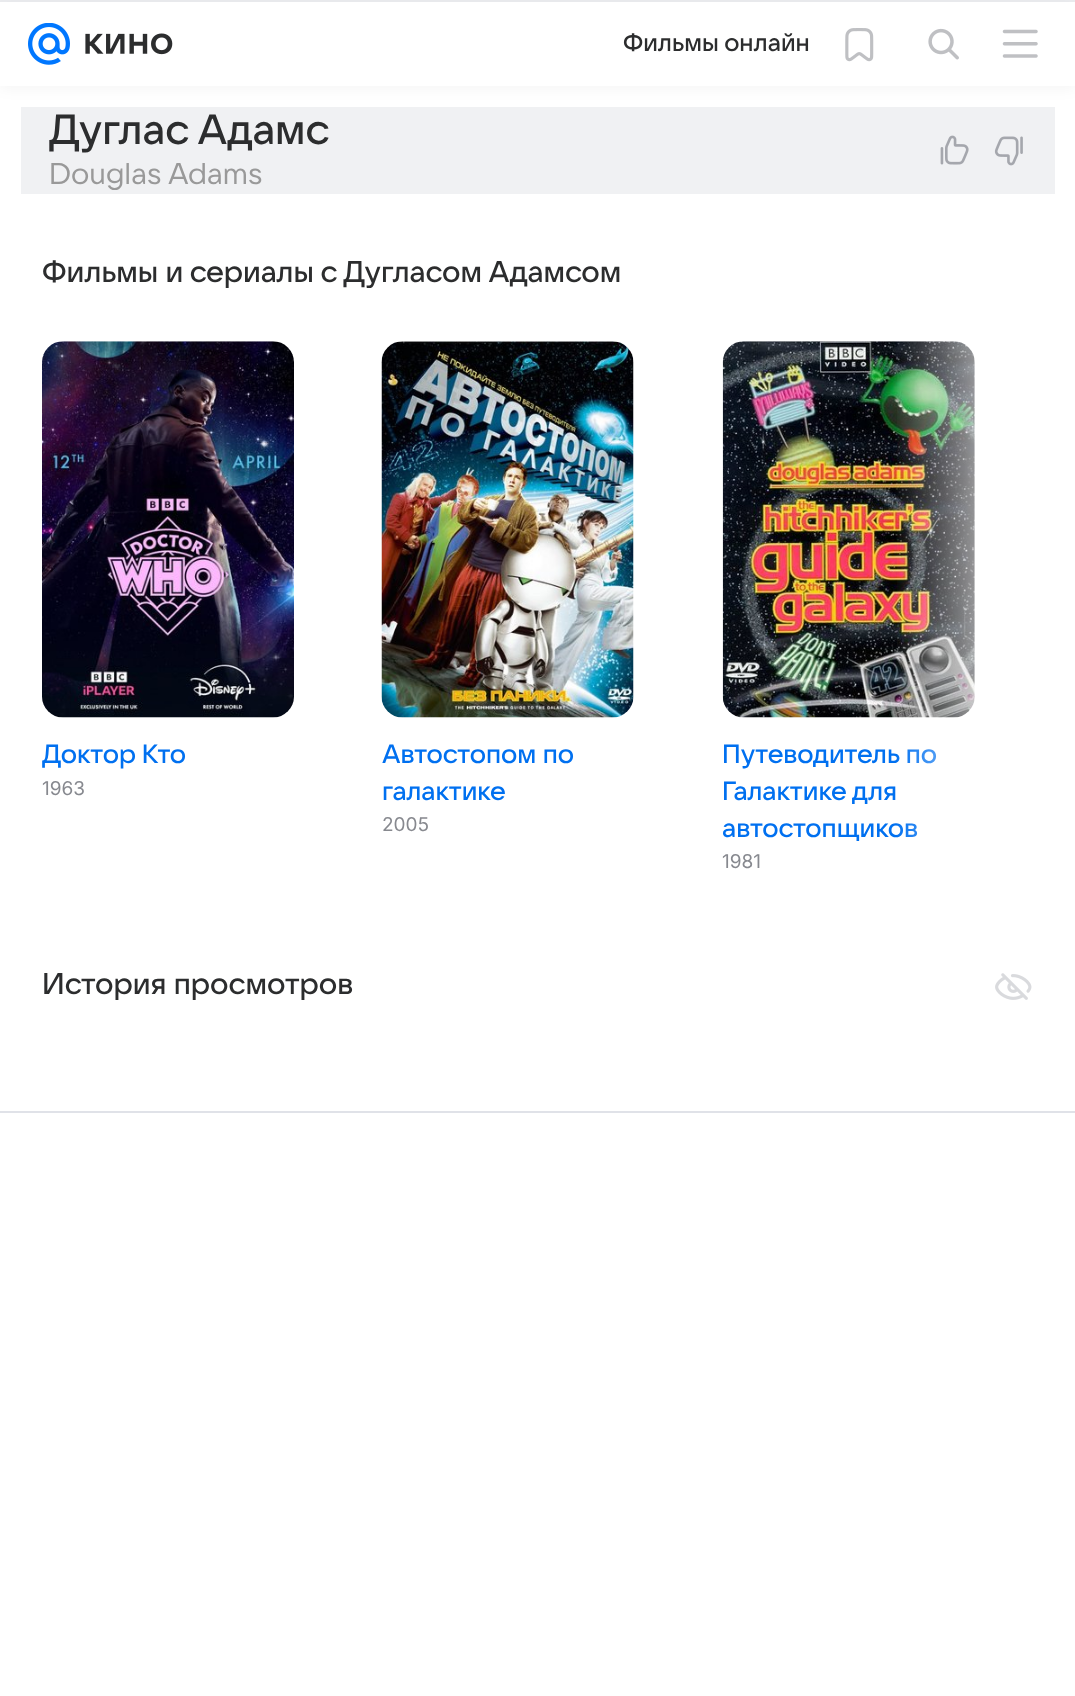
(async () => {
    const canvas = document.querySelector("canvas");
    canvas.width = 1075;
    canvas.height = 1696;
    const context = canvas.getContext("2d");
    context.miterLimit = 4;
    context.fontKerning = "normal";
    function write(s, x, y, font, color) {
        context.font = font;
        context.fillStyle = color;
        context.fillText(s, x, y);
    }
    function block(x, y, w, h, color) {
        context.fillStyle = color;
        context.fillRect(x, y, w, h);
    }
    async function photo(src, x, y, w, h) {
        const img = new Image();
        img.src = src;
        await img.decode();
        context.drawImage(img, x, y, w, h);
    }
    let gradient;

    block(0, 0, 1075, 1696, "rgb(255, 255, 255)");
    block(0, 0, 1075, 2, "rgb(235, 236, 239)");
    block(21, 107, 1034, 87, "rgb(240, 241, 243)");
    context.fillStyle = "rgba(0, 0, 0, 0.04)";
    context.filter = "blur(7px)";
    context.beginPath();
    context.rect(0, 5, 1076, 84);
    context.fill();
    context.filter = "none";
    block(0, 2, 1075, 84, "rgb(255, 255, 255)");
    await photo("media/1.png", 28, 23, 42, 42);
    await photo("media/2.png", 85, 33, 88, 22);
    write("Фильмы онлайн", 623, 51, "500 24.5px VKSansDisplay", "rgb(44, 45, 46)");
    await photo("media/3.png", 845, 28, 29, 34);
    await photo("media/4.png", 928, 28, 31, 32);
    await photo("media/5.png", 1002, 29, 36, 29);
    write("Дуглас Адамс", 49, 144, "500 42px VKSansDisplay", "rgb(44, 45, 46)");
    write("Douglas Adams", 49, 184, "29.75px VKSansDisplay", "rgb(153, 153, 153)");
    await photo("media/6.png", 940, 135, 29, 30);
    await photo("media/7.png", 994, 136, 29, 30);
    write("Фильмы и сериалы с Дугласом Адамсом", 42, 282, "500 29.75px VKSansDisplay", "rgb(44, 45, 46)");
    await photo("media/10.png", 722, 341, 253, 377);
    write("Путеводитель по", 722, 763, "500 26.25px VKSansDisplay", "rgb(0, 112, 240)");
    write("автостопщиков", 722, 837, "500 26.25px VKSansDisplay", "rgb(0, 112, 240)");
    gradient = context.createLinearGradient(894, 607, 1034, 607);
    gradient.addColorStop(0, "rgba(255, 255, 255, 0)");
    gradient.addColorStop(1, "rgb(255, 255, 255)");
    context.fillStyle = gradient;
    context.fillRect(897, 341, 78, 496);
    await photo("media/8.png", 42, 341, 252, 377);
    write("Доктор Кто", 42, 763, "500 26.25px VKSansDisplay", "rgb(0, 112, 240)");
    write("1963", 42, 795, "19px Inter", "rgb(135, 137, 143)");
    await photo("media/9.png", 381, 341, 253, 377);
    write("Автостопом по", 382, 763, "500 26.25px VKSansDisplay", "rgb(0, 112, 240)");
    write("галактике", 382, 800, "500 26.25px VKSansDisplay", "rgb(0, 112, 240)");
    write("2005", 382, 831, "19px Inter", "rgb(135, 137, 143)");
    write("Галактике для", 722, 800, "500 26.25px VKSansDisplay", "rgb(0, 112, 240)");
    write("1981", 722, 868, "19px Inter", "rgb(135, 137, 143)");
    write("История просмотров", 42, 994, "500 29.75px VKSansDisplay", "rgb(44, 45, 46)");
    await photo("media/11.png", 995, 973, 37, 27);
    block(0, 1111, 1075, 2, "rgb(224, 226, 232)");
})();
